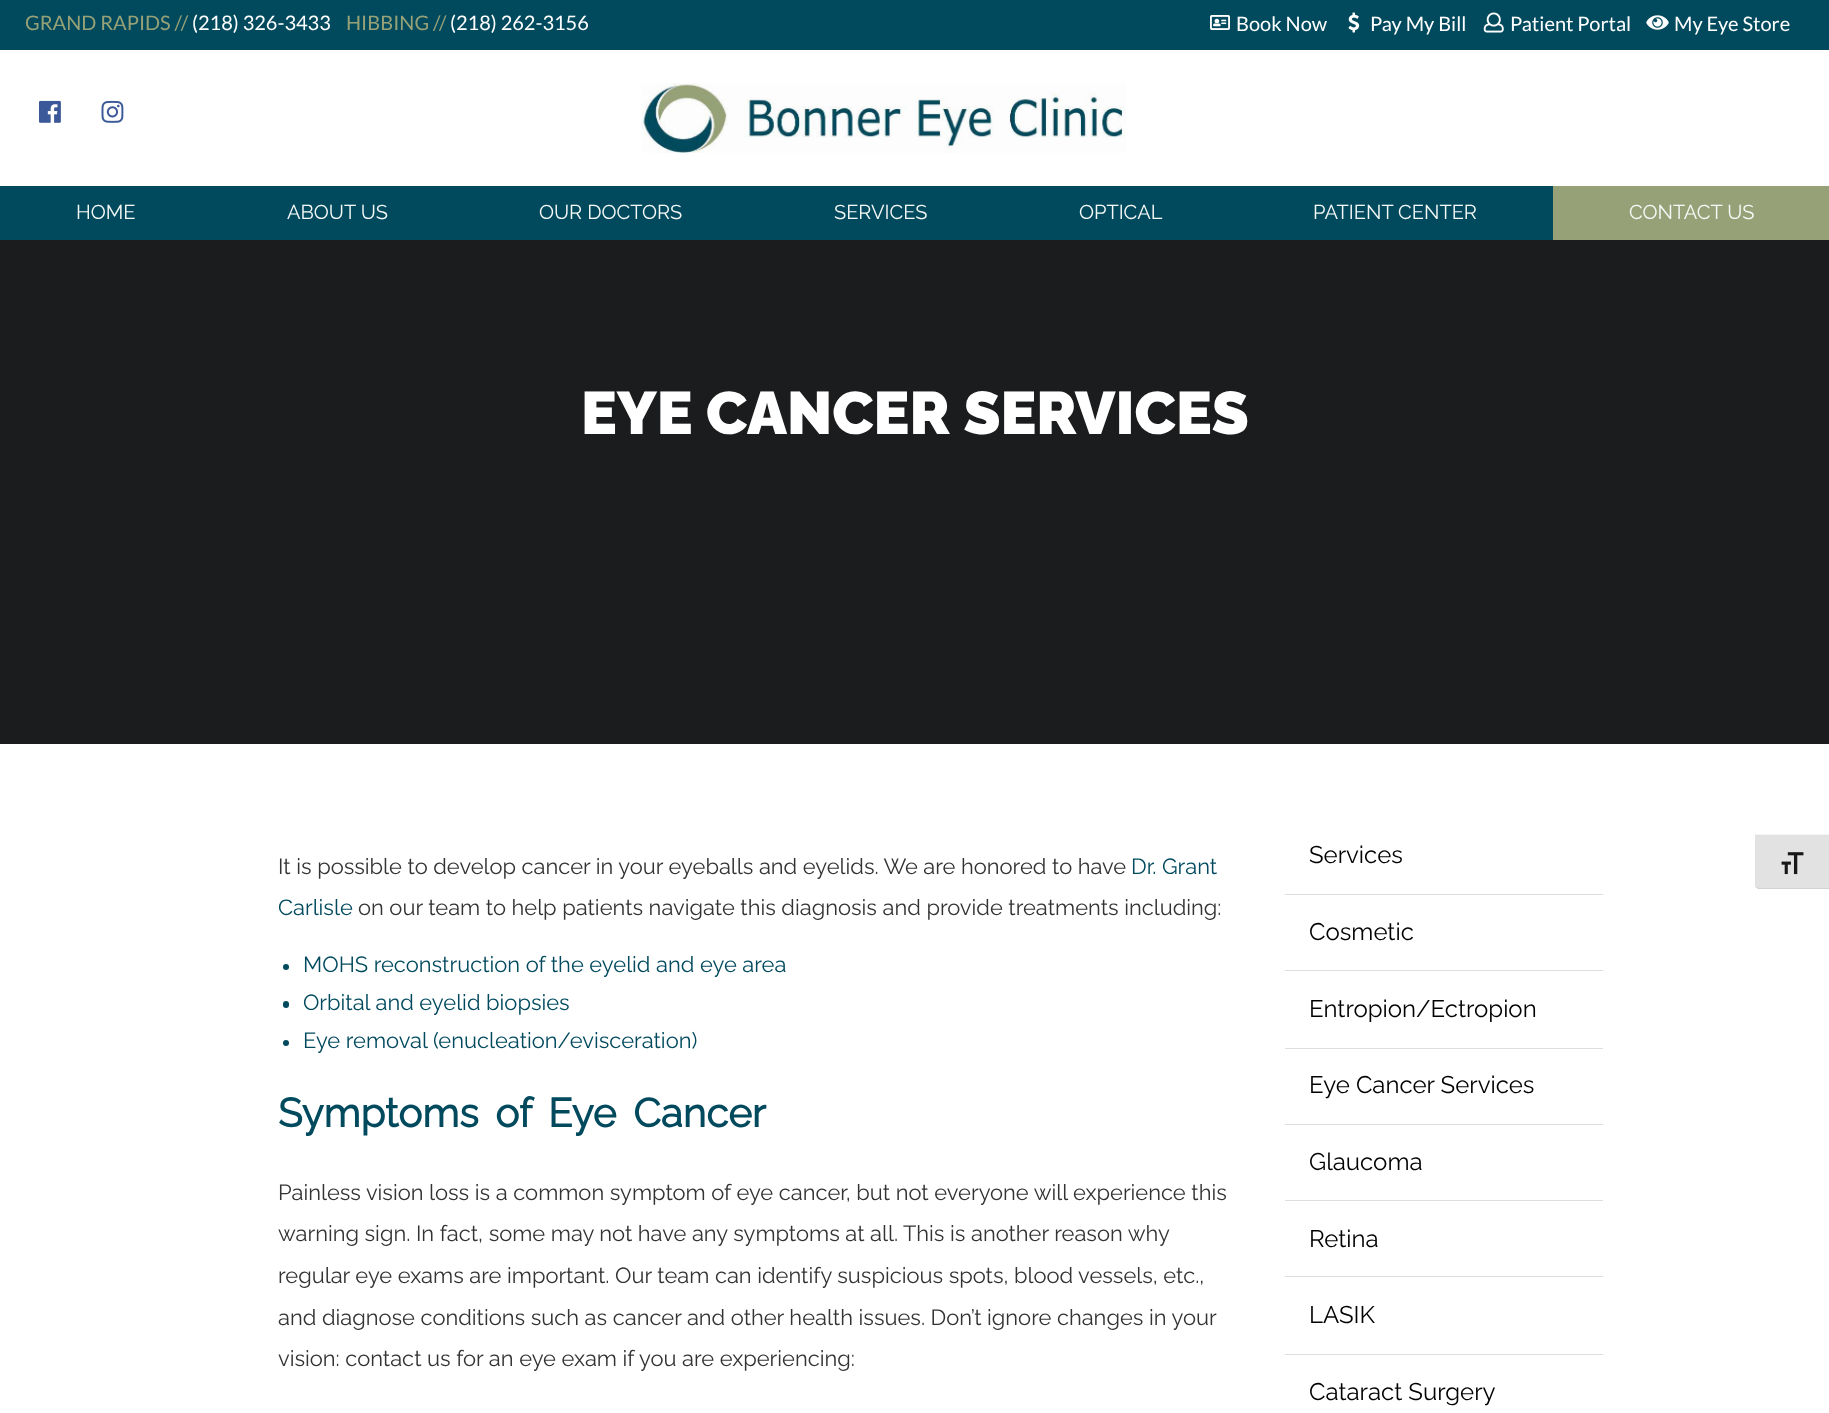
(async () => {
    const canvas = document.querySelector("canvas");
    canvas.width = 1829;
    canvas.height = 1413;
    const context = canvas.getContext("2d");
    context.miterLimit = 4;
    context.fontKerning = "normal";
    function write(s, x, y, font, color) {
        context.font = font;
        context.fillStyle = color;
        context.fillText(s, x, y);
    }
    function block(x, y, w, h, color) {
        context.fillStyle = color;
        context.fillRect(x, y, w, h);
    }
    function card(x, y, w, h, r, color) {
        context.fillStyle = color;
        context.beginPath();
        context.roundRect(x, y, w, h, r);
        context.fill();
    }
    async function photo(src, x, y, w, h) {
        const img = new Image();
        img.src = src;
        await img.decode();
        context.drawImage(img, x, y, w, h);
    }

    block(0, 0, 1829, 1413, "rgb(255, 255, 255)");
    block(0, 0, 1829, 50, "rgb(1, 74, 94)");
    write("GRAND RAPIDS //", 25, 30, "20px Lato", "rgb(150, 161, 119)");
    write("(218) 326-3433", 192, 30, "20px Lato", "rgb(255, 255, 255)");
    write("HIBBING //", 346, 30, "20px Lato", "rgb(150, 161, 119)");
    write("(218) 262-3156", 450, 30, "20px Lato", "rgb(255, 255, 255)");
    await photo("media/1.png", 1210, 15, 20, 15);
    write("Book Now", 1236, 31, "20px Lato", "rgb(255, 255, 255)");
    await photo("media/2.png", 1348, 12, 12, 21);
    write("Pay My Bill", 1370, 31, "20px Lato", "rgb(255, 255, 255)");
    await photo("media/3.png", 1483, 12, 21, 21);
    write("Patient Portal", 1510, 31, "20px Lato", "rgb(255, 255, 255)");
    await photo("media/4.png", 1646, 15, 23, 15);
    write("My Eye Store", 1674, 31, "20px Lato", "rgb(255, 255, 255)");
    await photo("media/5.png", 39, 100, 22, 23);
    await photo("media/6.png", 101, 100, 23, 23);
    await photo("media/7.png", 641, 83, 485, 70);
    block(0, 186, 1553, 54, "rgb(1, 74, 94)");
    write("HOME", 76, 219, "20px Raleway", "rgb(246, 249, 247)");
    write("ABOUT US", 287, 219, "20px Raleway", "rgb(246, 249, 247)");
    write("OUR DOCTORS", 539, 219, "20px Raleway", "rgb(246, 249, 247)");
    write("SERVICES", 834, 219, "20px Raleway", "rgb(246, 249, 247)");
    write("OPTICAL", 1079, 219, "20px Raleway", "rgb(246, 249, 247)");
    write("PATIENT CENTER", 1313, 219, "20px Raleway", "rgb(246, 249, 247)");
    block(1553, 186, 276, 54, "rgb(150, 161, 119)");
    write("CONTACT US", 1629, 219, "20px Raleway", "rgb(246, 249, 247)");
    block(0, 240, 1829, 504, "rgb(27, 28, 29)");
    write("EYE CANCER SERVICES", 581, 434, "900 60px Raleway", "rgb(255, 255, 255)");
    write("It is possible to develop cancer in your eyeballs and eyelids. We are honored to have", 278, 874, "21.9px Raleway", "rgb(51, 51, 51)");
    write("Dr. Grant", 1131, 874, "21.9px Raleway", "rgb(1, 74, 94)");
    write("Carlisle", 278, 915, "21.9px Raleway", "rgb(1, 74, 94)");
    write("on our team to help patients navigate this diagnosis and provide treatments including:", 358, 915, "21.9px Raleway", "rgb(51, 51, 51)");
    context.fillStyle = "rgb(1, 74, 94)";
    context.beginPath();
    context.arc(286, 967, 3, 0, Math.PI * 2);
    context.fill();
    write("MOHS reconstruction of the eyelid and eye area", 303, 972, "21.9px Raleway", "rgb(1, 74, 94)");
    card(283, 1001, 6, 7, 3, "rgb(1, 74, 94)");
    write("Orbital and eyelid biopsies", 303, 1010, "21.9px Raleway", "rgb(1, 74, 94)");
    context.beginPath();
    context.arc(286, 1043, 3, 0, Math.PI * 2);
    context.fill();
    write("Eye removal (enucleation/evisceration)", 303, 1048, "21.9px Raleway", "rgb(1, 74, 94)");
    context.wordSpacing = "6.5px";
    write("Symptoms of Eye Cancer", 278, 1127, "bold 40.25px Raleway", "rgb(1, 74, 94)");
    context.wordSpacing = "0px";
    write("Painless vision loss is a common symptom of eye cancer, but not everyone will experience this", 278, 1200, "21.9px Raleway", "rgb(51, 51, 51)");
    write("warning sign. In fact, some may not have any symptoms at all. This is another reason why", 278, 1241, "21.9px Raleway", "rgb(51, 51, 51)");
    write("regular eye exams are important. Our team can identify suspicious spots, blood vessels, etc.,", 278, 1283, "21.9px Raleway", "rgb(51, 51, 51)");
    write("and diagnose conditions such as cancer and other health issues. Don’t ignore changes in your", 278, 1325, "21.9px Raleway", "rgb(51, 51, 51)");
    write("vision: contact us for an eye exam if you are experiencing:", 278, 1366, "21.9px Raleway", "rgb(51, 51, 51)");
    write("Services", 1309, 863, "24px Raleway", "rgb(0, 0, 0)");
    block(1285, 894, 318, 1, "rgb(222, 222, 222)");
    write("Cosmetic", 1309, 940, "24px Raleway", "rgb(0, 0, 0)");
    block(1285, 970, 318, 1, "rgb(222, 222, 222)");
    write("Entropion/Ectropion", 1309, 1017, "24px Raleway", "rgb(0, 0, 0)");
    block(1285, 1048, 318, 1, "rgb(222, 222, 222)");
    write("Eye Cancer Services", 1309, 1093, "24px Raleway", "rgb(0, 0, 0)");
    block(1285, 1124, 318, 1, "rgb(222, 222, 222)");
    write("Glaucoma", 1309, 1170, "24px Raleway", "rgb(0, 0, 0)");
    block(1285, 1200, 318, 1, "rgb(222, 222, 222)");
    write("Retina", 1309, 1247, "24px Raleway", "rgb(0, 0, 0)");
    block(1285, 1276, 318, 1, "rgb(222, 222, 222)");
    write("LASIK", 1309, 1323, "24px Raleway", "rgb(0, 0, 0)");
    block(1285, 1354, 318, 1, "rgb(222, 222, 222)");
    write("Cataract Surgery", 1309, 1400, "24px Raleway", "rgb(0, 0, 0)");
    context.fillStyle = "rgb(226, 226, 226)";
    context.beginPath();
    context.moveTo(1755, 834);
    context.lineTo(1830, 834);
    context.lineTo(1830, 889);
    context.lineTo(1760, 889);
    context.bezierCurveTo(1757, 889, 1755, 887, 1755, 884);
    context.closePath();
    context.fill();
    block(1755, 834, 74, 1, "rgb(245, 245, 245)");
    context.fillStyle = "rgb(210, 210, 210)";
    context.beginPath();
    context.moveTo(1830, 889);
    context.lineTo(1758, 889);
    context.bezierCurveTo(1756, 888, 1755, 886, 1755, 884);
    context.bezierCurveTo(1755, 886, 1757, 888, 1760, 888);
    context.lineTo(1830, 888);
    context.closePath();
    context.fill();
    await photo("media/8.png", 1781, 852, 23, 23);
})();
